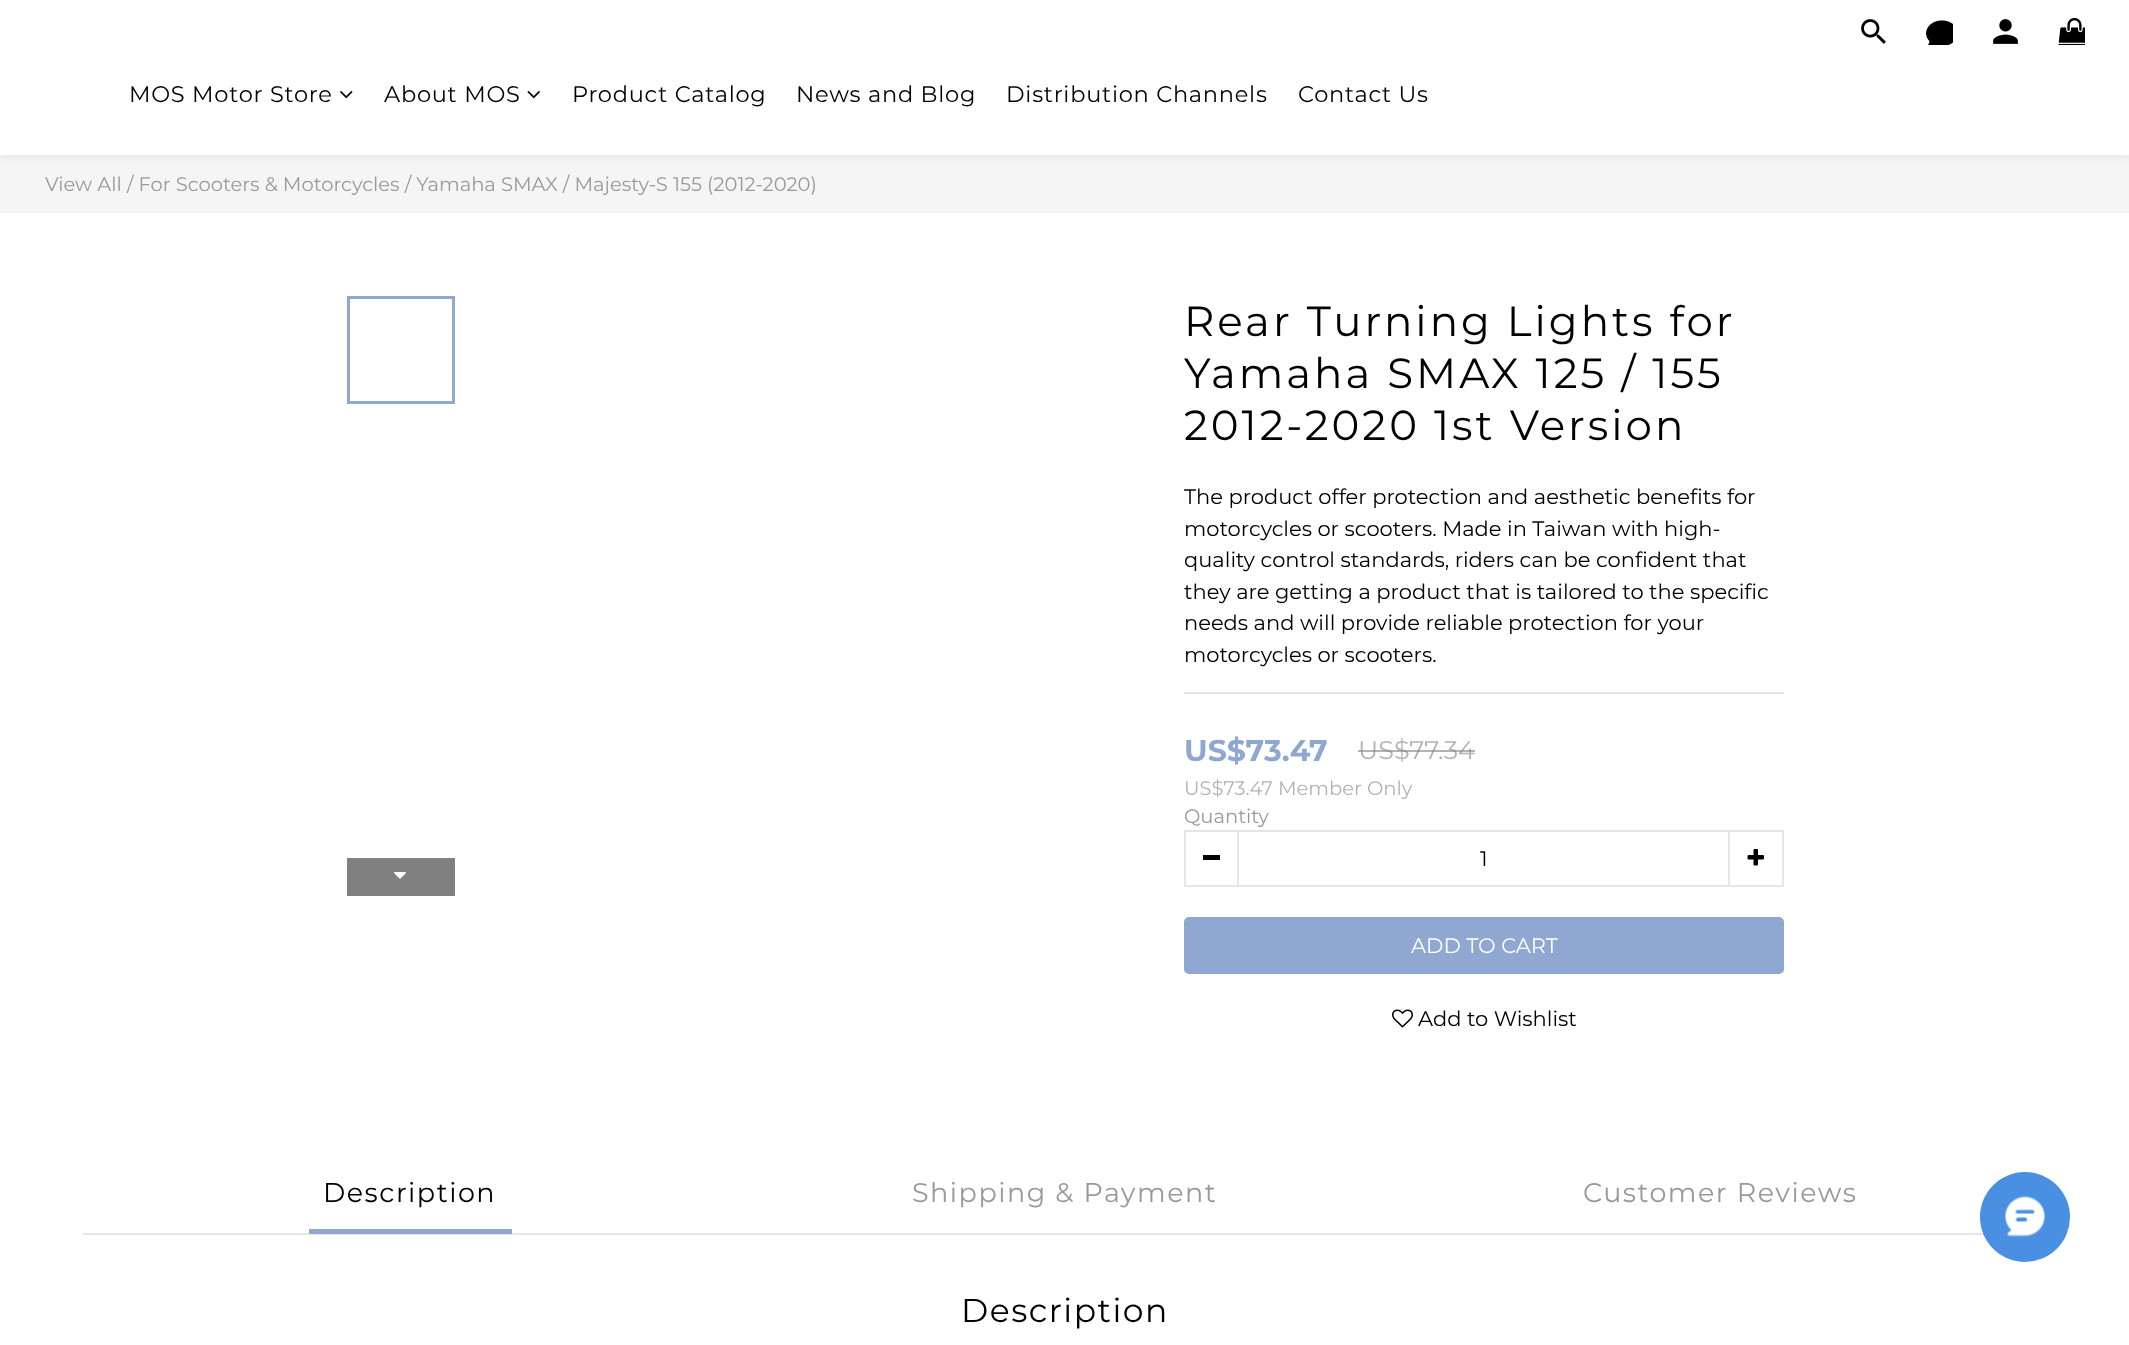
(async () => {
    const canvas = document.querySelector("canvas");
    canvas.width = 2129;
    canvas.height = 1345;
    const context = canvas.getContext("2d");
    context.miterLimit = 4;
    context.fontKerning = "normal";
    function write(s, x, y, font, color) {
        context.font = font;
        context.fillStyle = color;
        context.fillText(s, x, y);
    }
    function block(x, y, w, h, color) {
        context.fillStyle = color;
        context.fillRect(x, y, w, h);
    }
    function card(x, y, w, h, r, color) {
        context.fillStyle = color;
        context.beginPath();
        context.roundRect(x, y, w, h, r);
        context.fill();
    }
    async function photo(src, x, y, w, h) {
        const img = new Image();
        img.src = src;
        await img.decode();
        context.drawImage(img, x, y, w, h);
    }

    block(0, 0, 2129, 1345, "rgb(255, 255, 255)");
    block(0, 155, 2129, 58, "rgb(245, 245, 245)");
    context.fillStyle = "rgba(0, 0, 0, 0.06)";
    context.filter = "blur(4.5px)";
    context.beginPath();
    context.rect(0, 3, 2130, 155);
    context.fill();
    context.filter = "none";
    block(0, 0, 2129, 155, "rgb(255, 255, 255)");
    await photo("media/1.png", 1861, 19, 25, 25);
    await photo("media/2.png", 1926, 20, 27, 25);
    await photo("media/3.png", 1993, 19, 25, 25);
    await photo("media/4.png", 2058, 18, 27, 27);
    context.letterSpacing = "0.75px";
    write("MOS Motor Store", 129, 102, "22.5px Montserrat", "rgb(0, 0, 0)");
    await photo("media/5.png", 340, 91, 13, 8);
    write("About MOS", 384, 102, "22.5px Montserrat", "rgb(0, 0, 0)");
    await photo("media/6.png", 527, 91, 13, 8);
    write("Product Catalog", 572, 102, "22.5px Montserrat", "rgb(0, 0, 0)");
    write("News and Blog", 796, 102, "22.5px Montserrat", "rgb(0, 0, 0)");
    write("Distribution Channels", 1006, 102, "22.5px Montserrat", "rgb(0, 0, 0)");
    write("Contact Us", 1298, 102, "22.5px Montserrat", "rgb(0, 0, 0)");
    context.letterSpacing = "0px";
    write("View All / For Scooters & Motorcycles / Yamaha SMAX / Majesty-S 155 (2012-2020)", 45, 191, "19.5px Montserrat", "rgb(153, 153, 153)");
    context.strokeStyle = "rgb(144, 167, 209)";
    context.lineWidth = 3;
    context.strokeRect(348.5, 297.5, 105, 105);
    block(347, 858, 108, 38, "rgb(128, 128, 128)");
    await photo("media/7.png", 394, 872, 12, 7);
    context.letterSpacing = "3px";
    write("Rear Turning Lights for", 1184, 336, "42px Montserrat", "rgb(0, 0, 0)");
    write("Yamaha SMAX 125 / 155", 1184, 388, "42px Montserrat", "rgb(0, 0, 0)");
    write("2012-2020 1st Version", 1184, 440, "42px Montserrat", "rgb(0, 0, 0)");
    context.letterSpacing = "0px";
    write("The product offer protection and aesthetic benefits for", 1184, 504, "21px Montserrat", "rgb(0, 0, 0)");
    write("motorcycles or scooters. Made in Taiwan with high-", 1184, 536, "21px Montserrat", "rgb(0, 0, 0)");
    write("quality control standards, riders can be confident that", 1184, 567, "21px Montserrat", "rgb(0, 0, 0)");
    write("they are getting a product that is tailored to the specific", 1184, 599, "21px Montserrat", "rgb(0, 0, 0)");
    write("needs and will provide reliable protection for your", 1184, 630, "21px Montserrat", "rgb(0, 0, 0)");
    write("motorcycles or scooters.", 1184, 662, "21px Montserrat", "rgb(0, 0, 0)");
    block(1184, 692, 600, 2, "rgb(230, 230, 230)");
    write("US$73.47", 1184, 761, "bold 30px Montserrat", "rgb(144, 167, 209)");
    write("US$77.34", 1358, 759, "25.5px Montserrat", "rgb(179, 179, 179)");
    block(1358, 750, 117, 2, "rgba(128, 128, 128, 0.6)");
    write("US$73.47 Member Only", 1184, 795, "19.5px Montserrat", "rgb(179, 179, 179)");
    write("Quantity", 1184, 823, "19.5px Montserrat", "rgb(153, 153, 153)");
    block(1238, 830, 492, 2, "rgb(230, 230, 230)");
    block(1238, 885, 492, 2, "rgb(230, 230, 230)");
    context.strokeStyle = "rgb(230, 230, 230)";
    context.lineWidth = 2;
    context.strokeRect(1185, 831, 53, 55);
    block(1203, 855, 17, 5, "rgb(0, 0, 0)");
    write("1", 1480, 866, "21px Montserrat", "rgb(0, 0, 0)");
    context.strokeRect(1729, 831, 54, 55);
    await photo("media/8.png", 1747, 849, 17, 17);
    card(1184, 917, 600, 57, 5, "rgb(144, 167, 209)");
    write("ADD TO CART", 1411, 953, "21px Montserrat", "rgb(255, 255, 255)");
    await photo("media/9.png", 1392, 1009, 21, 19);
    write("Add to Wishlist", 1418, 1026, "21px Montserrat", "rgb(0, 0, 0)");
    block(83, 1233, 1901, 2, "rgb(230, 230, 230)");
    context.letterSpacing = "1.5px";
    write("Description", 323, 1202, "27px Montserrat", "rgb(0, 0, 0)");
    block(309, 1229, 203, 5, "rgb(144, 167, 209)");
    write("Shipping & Payment", 912, 1202, "27px Montserrat", "rgb(153, 153, 153)");
    write("Customer Reviews", 1583, 1202, "27px Montserrat", "rgb(153, 153, 153)");
    write("Description", 961, 1322, "33px Montserrat", "rgb(0, 0, 0)");
    context.fillStyle = "rgb(74, 144, 226)";
    context.beginPath();
    context.arc(2025, 1217, 45, 0, Math.PI * 2);
    context.fill();
    await photo("media/10.png", 2005, 1196, 40, 41);
})();
